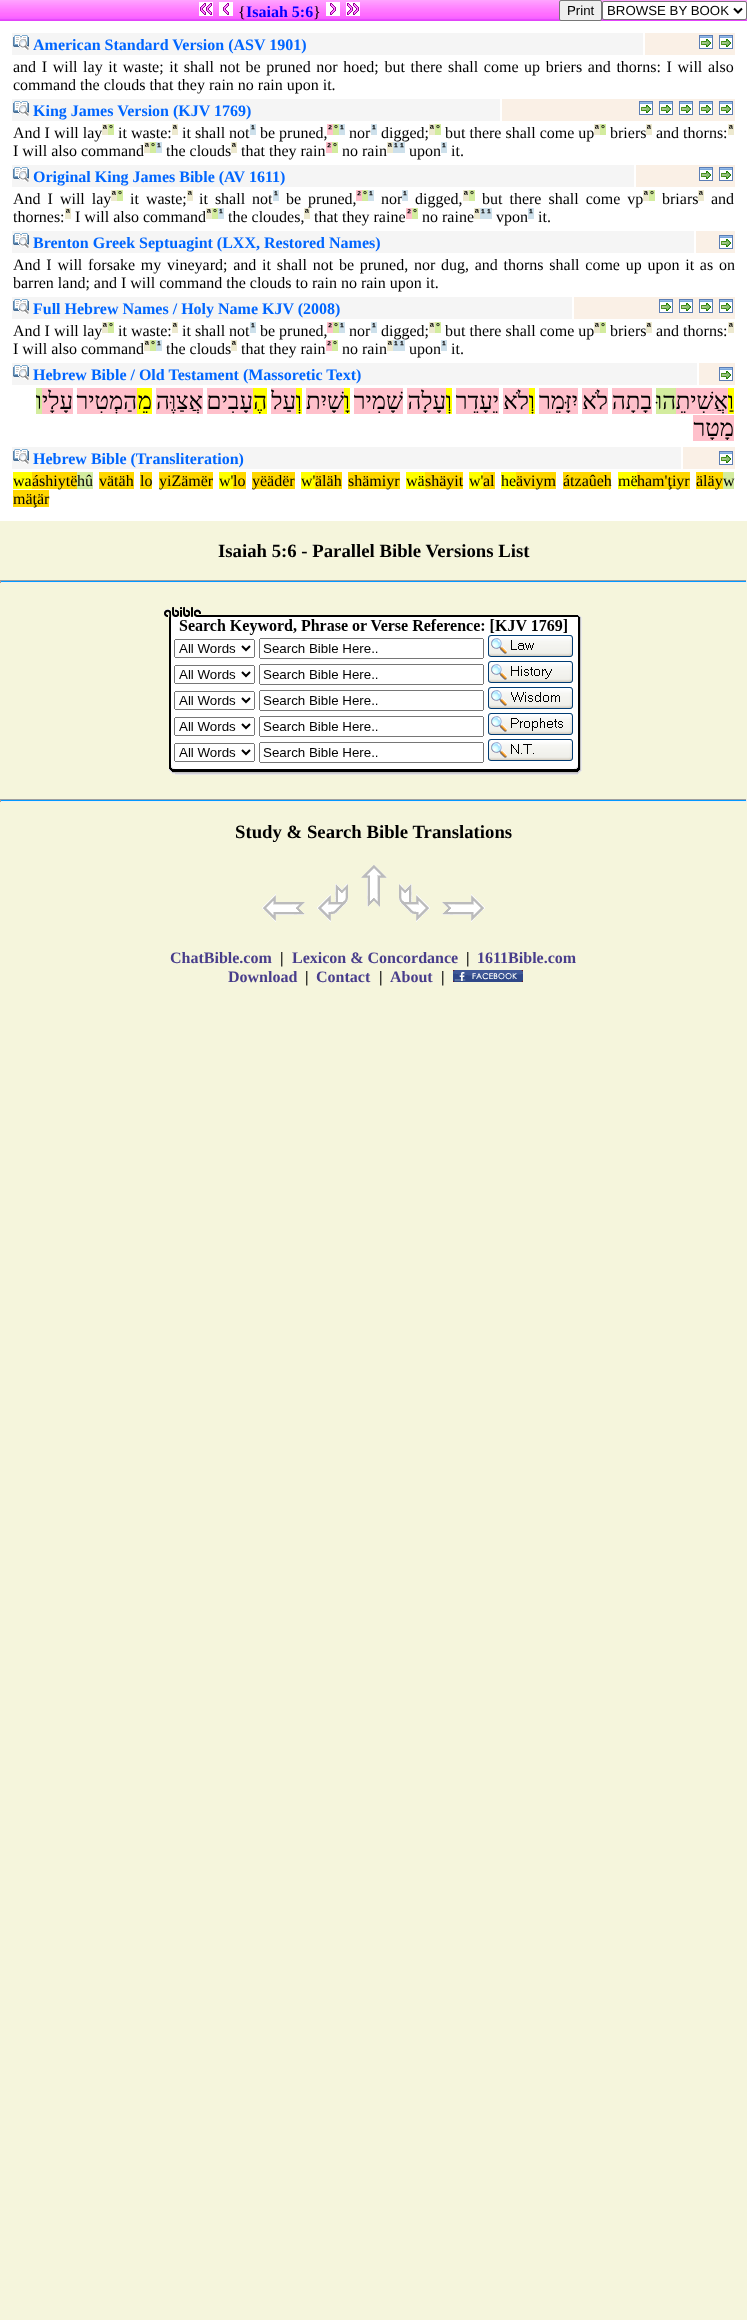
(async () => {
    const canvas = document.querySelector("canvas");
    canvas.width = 747;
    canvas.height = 2320;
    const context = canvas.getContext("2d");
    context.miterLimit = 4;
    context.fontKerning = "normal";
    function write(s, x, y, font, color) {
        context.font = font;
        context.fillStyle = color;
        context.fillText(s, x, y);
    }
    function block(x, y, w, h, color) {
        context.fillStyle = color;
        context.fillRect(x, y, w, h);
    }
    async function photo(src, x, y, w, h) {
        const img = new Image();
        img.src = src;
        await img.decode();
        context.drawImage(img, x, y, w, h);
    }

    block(0, 0, 747, 2320, "rgb(245, 245, 220)");
    await photo("media/1.png", 0, 0, 747, 21);
    await photo("media/2.png", 199, 2, 14, 14);
    await photo("media/3.png", 219, 2, 14, 14);
    write("{", 238, 17, "16px Liberation Serif", "rgb(0, 0, 0)");
    write("Isaiah 5:6", 246, 17, "bold 16px Liberation Serif", "rgb(0, 0, 255)");
    write("}", 313, 17, "16px Liberation Serif", "rgb(0, 0, 0)");
    await photo("media/4.png", 326, 2, 14, 14);
    await photo("media/5.png", 346, 2, 14, 14);
    context.fillStyle = "rgb(239, 239, 239)";
    context.beginPath();
    context.roundRect(559.5, 0.5, 42, 20, 1.5);
    context.fill();
    context.strokeStyle = "rgb(118, 118, 118)";
    context.stroke();
    write("Print", 567, 15, "13.25px Liberation Sans", "rgb(0, 0, 0)");
    context.fillStyle = "rgb(255, 255, 255)";
    context.beginPath();
    context.roundRect(602.5, 1.5, 144, 18, 1.5);
    context.fill();
    context.stroke();
    context.beginPath();
    context.moveTo(734, 8.5);
    context.lineTo(738, 12.5);
    context.lineTo(742, 8.5);
    context.strokeStyle = "rgb(0, 0, 0)";
    context.lineWidth = 2;
    context.stroke();
    write("BROWSE BY BOOK", 607, 15, "13.25px Liberation Sans", "rgb(0, 0, 0)");
    block(0, 21, 747, 500, "rgb(255, 255, 255)");
    block(12, 33, 631, 22, "rgb(245, 245, 245)");
    await photo("media/6.png", 13, 35, 16, 15);
    write("American Standard Version (ASV 1901)", 33, 50, "bold 16px Liberation Serif", "rgb(0, 102, 255)");
    block(645, 33, 90, 22, "rgb(250, 240, 230)");
    await photo("media/7.png", 699, 35, 14, 14);
    await photo("media/7.png", 719, 35, 14, 14);
    context.wordSpacing = "1.6px";
    write("and I will lay it waste; it shall not be pruned nor hoed; but there shall come up briers and thorns: I will also", 13, 72, "16px Liberation Serif", "rgb(0, 0, 0)");
    context.wordSpacing = "0px";
    write("command the clouds that they rain no rain upon it.", 13, 90, "16px Liberation Serif", "rgb(0, 0, 0)");
    block(12, 99, 488, 22, "rgb(245, 245, 245)");
    await photo("media/6.png", 13, 101, 16, 15);
    write("King James Version (KJV 1769)", 33, 116, "bold 16px Liberation Serif", "rgb(0, 102, 255)");
    block(502, 99, 233, 22, "rgb(250, 240, 230)");
    await photo("media/7.png", 639, 101, 14, 14);
    await photo("media/7.png", 659, 101, 14, 14);
    await photo("media/7.png", 679, 101, 14, 14);
    await photo("media/7.png", 699, 101, 14, 14);
    await photo("media/7.png", 719, 101, 14, 14);
    write("And I will lay", 13, 138, "16px Liberation Serif", "rgb(0, 0, 0)");
    block(102, 124, 6, 11, "rgb(237, 233, 207)");
    write("ª", 102, 132, "bold 10px Liberation Mono", "rgb(0, 0, 0)");
    block(108, 124, 6, 11, "rgb(211, 236, 158)");
    write("°", 108, 132, "bold 10px Liberation Mono", "rgb(0, 0, 0)");
    write("it waste:", 118, 138, "16px Liberation Serif", "rgb(0, 0, 0)");
    block(172, 124, 6, 11, "rgb(237, 233, 207)");
    write("ª", 172, 132, "bold 10px Liberation Mono", "rgb(0, 0, 0)");
    write("it shall not", 182, 138, "16px Liberation Serif", "rgb(0, 0, 0)");
    block(250, 124, 6, 11, "rgb(205, 224, 235)");
    write("¹", 250, 132, "bold 10px Liberation Mono", "rgb(0, 0, 0)");
    write("be pruned,", 260, 138, "16px Liberation Serif", "rgb(0, 0, 0)");
    block(327, 124, 6, 11, "rgb(255, 192, 203)");
    write("²", 327, 132, "bold 10px Liberation Mono", "rgb(0, 0, 0)");
    block(333, 124, 6, 11, "rgb(211, 236, 158)");
    write("°", 333, 132, "bold 10px Liberation Mono", "rgb(0, 0, 0)");
    block(339, 124, 6, 11, "rgb(205, 224, 235)");
    write("¹", 339, 132, "bold 10px Liberation Mono", "rgb(0, 0, 0)");
    write("nor", 349, 138, "16px Liberation Serif", "rgb(0, 0, 0)");
    block(371, 124, 6, 11, "rgb(205, 224, 235)");
    write("¹", 371, 132, "bold 10px Liberation Mono", "rgb(0, 0, 0)");
    write("digged;", 381, 138, "16px Liberation Serif", "rgb(0, 0, 0)");
    block(429, 124, 6, 11, "rgb(237, 233, 207)");
    write("ª", 429, 132, "bold 10px Liberation Mono", "rgb(0, 0, 0)");
    block(435, 124, 6, 11, "rgb(211, 236, 158)");
    write("°", 435, 132, "bold 10px Liberation Mono", "rgb(0, 0, 0)");
    write("but there shall come up", 445, 138, "16px Liberation Serif", "rgb(0, 0, 0)");
    block(594, 124, 6, 11, "rgb(237, 233, 207)");
    write("ª", 594, 132, "bold 10px Liberation Mono", "rgb(0, 0, 0)");
    block(600, 124, 6, 11, "rgb(211, 236, 158)");
    write("°", 600, 132, "bold 10px Liberation Mono", "rgb(0, 0, 0)");
    write("briers", 610, 138, "16px Liberation Serif", "rgb(0, 0, 0)");
    block(646, 124, 6, 11, "rgb(237, 233, 207)");
    write("ª", 646, 132, "bold 10px Liberation Mono", "rgb(0, 0, 0)");
    write("and thorns:", 656, 138, "16px Liberation Serif", "rgb(0, 0, 0)");
    block(728, 124, 6, 11, "rgb(237, 233, 207)");
    write("ª", 728, 132, "bold 10px Liberation Mono", "rgb(0, 0, 0)");
    write("I will also command", 13, 156, "16px Liberation Serif", "rgb(0, 0, 0)");
    block(144, 142, 6, 11, "rgb(237, 233, 207)");
    write("ª", 144, 150, "bold 10px Liberation Mono", "rgb(0, 0, 0)");
    block(150, 142, 6, 11, "rgb(211, 236, 158)");
    write("°", 150, 150, "bold 10px Liberation Mono", "rgb(0, 0, 0)");
    block(156, 142, 6, 11, "rgb(205, 224, 235)");
    write("¹", 156, 150, "bold 10px Liberation Mono", "rgb(0, 0, 0)");
    write("the clouds", 166, 156, "16px Liberation Serif", "rgb(0, 0, 0)");
    block(231, 142, 6, 11, "rgb(237, 233, 207)");
    write("ª", 231, 150, "bold 10px Liberation Mono", "rgb(0, 0, 0)");
    write("that they rain", 241, 156, "16px Liberation Serif", "rgb(0, 0, 0)");
    block(326, 142, 6, 11, "rgb(255, 192, 203)");
    write("²", 326, 150, "bold 10px Liberation Mono", "rgb(0, 0, 0)");
    block(332, 142, 6, 11, "rgb(211, 236, 158)");
    write("°", 332, 150, "bold 10px Liberation Mono", "rgb(0, 0, 0)");
    write("no rain", 342, 156, "16px Liberation Serif", "rgb(0, 0, 0)");
    block(387, 142, 6, 11, "rgb(237, 233, 207)");
    write("ª", 387, 150, "bold 10px Liberation Mono", "rgb(0, 0, 0)");
    block(393, 142, 12, 11, "rgb(205, 224, 235)");
    write("¹¹", 393, 150, "bold 10px Liberation Mono", "rgb(0, 0, 0)");
    write("upon", 409, 156, "16px Liberation Serif", "rgb(0, 0, 0)");
    block(441, 142, 6, 11, "rgb(205, 224, 235)");
    write("¹", 441, 150, "bold 10px Liberation Mono", "rgb(0, 0, 0)");
    write("it.", 451, 156, "16px Liberation Serif", "rgb(0, 0, 0)");
    block(12, 165, 622, 22, "rgb(245, 245, 245)");
    await photo("media/6.png", 13, 167, 16, 15);
    write("Original King James Bible (AV 1611)", 33, 182, "bold 16px Liberation Serif", "rgb(0, 102, 255)");
    block(636, 165, 99, 22, "rgb(250, 240, 230)");
    await photo("media/7.png", 699, 167, 14, 14);
    await photo("media/7.png", 719, 167, 14, 14);
    context.wordSpacing = "3px";
    write("And I will lay", 13, 204, "16px Liberation Serif", "rgb(0, 0, 0)");
    block(111, 190, 6, 11, "rgb(237, 233, 207)");
    context.wordSpacing = "0px";
    write("ª", 111, 198, "bold 10px Liberation Mono", "rgb(0, 0, 0)");
    block(117, 190, 6, 11, "rgb(211, 236, 158)");
    write("°", 117, 198, "bold 10px Liberation Mono", "rgb(0, 0, 0)");
    context.wordSpacing = "3px";
    write("it waste;", 130, 204, "16px Liberation Serif", "rgb(0, 0, 0)");
    block(187, 190, 6, 11, "rgb(237, 233, 207)");
    context.wordSpacing = "0px";
    write("ª", 187, 198, "bold 10px Liberation Mono", "rgb(0, 0, 0)");
    context.wordSpacing = "3px";
    write("it shall not", 199, 204, "16px Liberation Serif", "rgb(0, 0, 0)");
    block(273, 190, 6, 11, "rgb(205, 224, 235)");
    context.wordSpacing = "0px";
    write("¹", 273, 198, "bold 10px Liberation Mono", "rgb(0, 0, 0)");
    context.wordSpacing = "3px";
    write("be pruned,", 286, 204, "16px Liberation Serif", "rgb(0, 0, 0)");
    block(356, 190, 6, 11, "rgb(255, 192, 203)");
    context.wordSpacing = "0px";
    write("²", 356, 198, "bold 10px Liberation Mono", "rgb(0, 0, 0)");
    block(362, 190, 6, 11, "rgb(211, 236, 158)");
    write("°", 362, 198, "bold 10px Liberation Mono", "rgb(0, 0, 0)");
    block(368, 190, 6, 11, "rgb(205, 224, 235)");
    write("¹", 368, 198, "bold 10px Liberation Mono", "rgb(0, 0, 0)");
    write("nor", 381, 204, "16px Liberation Serif", "rgb(0, 0, 0)");
    block(402, 190, 6, 11, "rgb(205, 224, 235)");
    write("¹", 402, 198, "bold 10px Liberation Mono", "rgb(0, 0, 0)");
    write("digged,", 415, 204, "16px Liberation Serif", "rgb(0, 0, 0)");
    block(463, 190, 6, 11, "rgb(237, 233, 207)");
    write("ª", 463, 198, "bold 10px Liberation Mono", "rgb(0, 0, 0)");
    block(469, 190, 6, 11, "rgb(211, 236, 158)");
    write("°", 469, 198, "bold 10px Liberation Mono", "rgb(0, 0, 0)");
    context.wordSpacing = "3px";
    write("but there shall come vp", 482, 204, "16px Liberation Serif", "rgb(0, 0, 0)");
    block(643, 190, 6, 11, "rgb(237, 233, 207)");
    context.wordSpacing = "0px";
    write("ª", 643, 198, "bold 10px Liberation Mono", "rgb(0, 0, 0)");
    block(649, 190, 6, 11, "rgb(211, 236, 158)");
    write("°", 649, 198, "bold 10px Liberation Mono", "rgb(0, 0, 0)");
    write("briars", 662, 204, "16px Liberation Serif", "rgb(0, 0, 0)");
    block(698, 190, 6, 11, "rgb(237, 233, 207)");
    write("ª", 698, 198, "bold 10px Liberation Mono", "rgb(0, 0, 0)");
    write("and", 711, 204, "16px Liberation Serif", "rgb(0, 0, 0)");
    write("thornes:", 13, 222, "16px Liberation Serif", "rgb(0, 0, 0)");
    block(65, 208, 6, 11, "rgb(237, 233, 207)");
    write("ª", 65, 216, "bold 10px Liberation Mono", "rgb(0, 0, 0)");
    write("I will also command", 75, 222, "16px Liberation Serif", "rgb(0, 0, 0)");
    block(206, 208, 6, 11, "rgb(237, 233, 207)");
    write("ª", 206, 216, "bold 10px Liberation Mono", "rgb(0, 0, 0)");
    block(212, 208, 6, 11, "rgb(211, 236, 158)");
    write("°", 212, 216, "bold 10px Liberation Mono", "rgb(0, 0, 0)");
    block(218, 208, 6, 11, "rgb(205, 224, 235)");
    write("¹", 218, 216, "bold 10px Liberation Mono", "rgb(0, 0, 0)");
    write("the cloudes,", 228, 222, "16px Liberation Serif", "rgb(0, 0, 0)");
    block(304, 208, 6, 11, "rgb(237, 233, 207)");
    write("ª", 304, 216, "bold 10px Liberation Mono", "rgb(0, 0, 0)");
    write("that they raine", 314, 222, "16px Liberation Serif", "rgb(0, 0, 0)");
    block(406, 208, 6, 11, "rgb(255, 192, 203)");
    write("²", 406, 216, "bold 10px Liberation Mono", "rgb(0, 0, 0)");
    block(412, 208, 6, 11, "rgb(211, 236, 158)");
    write("°", 412, 216, "bold 10px Liberation Mono", "rgb(0, 0, 0)");
    write("no raine", 422, 222, "16px Liberation Serif", "rgb(0, 0, 0)");
    block(474, 208, 6, 11, "rgb(237, 233, 207)");
    write("ª", 474, 216, "bold 10px Liberation Mono", "rgb(0, 0, 0)");
    block(480, 208, 12, 11, "rgb(205, 224, 235)");
    write("¹¹", 480, 216, "bold 10px Liberation Mono", "rgb(0, 0, 0)");
    write("vpon", 496, 222, "16px Liberation Serif", "rgb(0, 0, 0)");
    block(528, 208, 6, 11, "rgb(205, 224, 235)");
    write("¹", 528, 216, "bold 10px Liberation Mono", "rgb(0, 0, 0)");
    write("it.", 538, 222, "16px Liberation Serif", "rgb(0, 0, 0)");
    block(12, 231, 682, 22, "rgb(245, 245, 245)");
    await photo("media/6.png", 13, 233, 16, 15);
    write("Brenton Greek Septuagint (LXX, Restored Names)", 33, 248, "bold 16px Liberation Serif", "rgb(0, 102, 255)");
    block(696, 231, 39, 22, "rgb(250, 240, 230)");
    await photo("media/7.png", 719, 235, 14, 14);
    context.wordSpacing = "1.75px";
    write("And I will forsake my vineyard; and it shall not be pruned, nor dug, and thorns shall come up upon it as on", 13, 270, "16px Liberation Serif", "rgb(0, 0, 0)");
    context.wordSpacing = "0px";
    write("barren land; and I will command the clouds to rain no rain upon it.", 13, 288, "16px Liberation Serif", "rgb(0, 0, 0)");
    block(12, 297, 560, 22, "rgb(245, 245, 245)");
    await photo("media/6.png", 13, 299, 16, 15);
    write("Full Hebrew Names / Holy Name KJV (2008)", 33, 314, "bold 16px Liberation Serif", "rgb(0, 102, 255)");
    block(574, 297, 161, 22, "rgb(250, 240, 230)");
    await photo("media/7.png", 659, 299, 14, 14);
    await photo("media/7.png", 679, 299, 14, 14);
    await photo("media/7.png", 699, 299, 14, 14);
    await photo("media/7.png", 719, 299, 14, 14);
    write("And I will lay", 13, 336, "16px Liberation Serif", "rgb(0, 0, 0)");
    block(102, 322, 6, 11, "rgb(237, 233, 207)");
    write("ª", 102, 330, "bold 10px Liberation Mono", "rgb(0, 0, 0)");
    block(108, 322, 6, 11, "rgb(211, 236, 158)");
    write("°", 108, 330, "bold 10px Liberation Mono", "rgb(0, 0, 0)");
    write("it waste:", 118, 336, "16px Liberation Serif", "rgb(0, 0, 0)");
    block(172, 322, 6, 11, "rgb(237, 233, 207)");
    write("ª", 172, 330, "bold 10px Liberation Mono", "rgb(0, 0, 0)");
    write("it shall not", 182, 336, "16px Liberation Serif", "rgb(0, 0, 0)");
    block(250, 322, 6, 11, "rgb(205, 224, 235)");
    write("¹", 250, 330, "bold 10px Liberation Mono", "rgb(0, 0, 0)");
    write("be pruned,", 260, 336, "16px Liberation Serif", "rgb(0, 0, 0)");
    block(327, 322, 6, 11, "rgb(255, 192, 203)");
    write("²", 327, 330, "bold 10px Liberation Mono", "rgb(0, 0, 0)");
    block(333, 322, 6, 11, "rgb(211, 236, 158)");
    write("°", 333, 330, "bold 10px Liberation Mono", "rgb(0, 0, 0)");
    block(339, 322, 6, 11, "rgb(205, 224, 235)");
    write("¹", 339, 330, "bold 10px Liberation Mono", "rgb(0, 0, 0)");
    write("nor", 349, 336, "16px Liberation Serif", "rgb(0, 0, 0)");
    block(371, 322, 6, 11, "rgb(205, 224, 235)");
    write("¹", 371, 330, "bold 10px Liberation Mono", "rgb(0, 0, 0)");
    write("digged;", 381, 336, "16px Liberation Serif", "rgb(0, 0, 0)");
    block(429, 322, 6, 11, "rgb(237, 233, 207)");
    write("ª", 429, 330, "bold 10px Liberation Mono", "rgb(0, 0, 0)");
    block(435, 322, 6, 11, "rgb(211, 236, 158)");
    write("°", 435, 330, "bold 10px Liberation Mono", "rgb(0, 0, 0)");
    write("but there shall come up", 445, 336, "16px Liberation Serif", "rgb(0, 0, 0)");
    block(594, 322, 6, 11, "rgb(237, 233, 207)");
    write("ª", 594, 330, "bold 10px Liberation Mono", "rgb(0, 0, 0)");
    block(600, 322, 6, 11, "rgb(211, 236, 158)");
    write("°", 600, 330, "bold 10px Liberation Mono", "rgb(0, 0, 0)");
    write("briers", 610, 336, "16px Liberation Serif", "rgb(0, 0, 0)");
    block(646, 322, 6, 11, "rgb(237, 233, 207)");
    write("ª", 646, 330, "bold 10px Liberation Mono", "rgb(0, 0, 0)");
    write("and thorns:", 656, 336, "16px Liberation Serif", "rgb(0, 0, 0)");
    block(728, 322, 6, 11, "rgb(237, 233, 207)");
    write("ª", 728, 330, "bold 10px Liberation Mono", "rgb(0, 0, 0)");
    write("I will also command", 13, 354, "16px Liberation Serif", "rgb(0, 0, 0)");
    block(144, 340, 6, 11, "rgb(237, 233, 207)");
    write("ª", 144, 348, "bold 10px Liberation Mono", "rgb(0, 0, 0)");
    block(150, 340, 6, 11, "rgb(211, 236, 158)");
    write("°", 150, 348, "bold 10px Liberation Mono", "rgb(0, 0, 0)");
    block(156, 340, 6, 11, "rgb(205, 224, 235)");
    write("¹", 156, 348, "bold 10px Liberation Mono", "rgb(0, 0, 0)");
    write("the clouds", 166, 354, "16px Liberation Serif", "rgb(0, 0, 0)");
    block(231, 340, 6, 11, "rgb(237, 233, 207)");
    write("ª", 231, 348, "bold 10px Liberation Mono", "rgb(0, 0, 0)");
    write("that they rain", 241, 354, "16px Liberation Serif", "rgb(0, 0, 0)");
    block(326, 340, 6, 11, "rgb(255, 192, 203)");
    write("²", 326, 348, "bold 10px Liberation Mono", "rgb(0, 0, 0)");
    block(332, 340, 6, 11, "rgb(211, 236, 158)");
    write("°", 332, 348, "bold 10px Liberation Mono", "rgb(0, 0, 0)");
    write("no rain", 342, 354, "16px Liberation Serif", "rgb(0, 0, 0)");
    block(387, 340, 6, 11, "rgb(237, 233, 207)");
    write("ª", 387, 348, "bold 10px Liberation Mono", "rgb(0, 0, 0)");
    block(393, 340, 12, 11, "rgb(205, 224, 235)");
    write("¹¹", 393, 348, "bold 10px Liberation Mono", "rgb(0, 0, 0)");
    write("upon", 409, 354, "16px Liberation Serif", "rgb(0, 0, 0)");
    block(441, 340, 6, 11, "rgb(205, 224, 235)");
    write("¹", 441, 348, "bold 10px Liberation Mono", "rgb(0, 0, 0)");
    write("it.", 451, 354, "16px Liberation Serif", "rgb(0, 0, 0)");
    block(12, 363, 685, 22, "rgb(245, 245, 245)");
    await photo("media/6.png", 13, 365, 16, 15);
    write("Hebrew Bible / Old Testament (Massoretic Text)", 33, 380, "bold 16px Liberation Serif", "rgb(0, 102, 255)");
    block(699, 363, 36, 22, "rgb(250, 240, 230)");
    await photo("media/7.png", 719, 367, 14, 14);
    block(36, 388, 6, 26, "rgb(211, 236, 158)");
    context.direction = "rtl";
    write("ו", 42, 409, "24px Liberation Serif", "rgb(0, 0, 0)");
    block(42, 388, 31, 26, "rgb(255, 192, 203)");
    write("עָלָי", 73, 409, "24px Liberation Serif", "rgb(0, 0, 0)");
    block(77, 388, 60, 26, "rgb(255, 192, 203)");
    write("הַמְטִיר", 137, 409, "24px Liberation Serif", "rgb(0, 0, 0)");
    block(137, 388, 15, 26, "rgb(255, 255, 0)");
    write("מֵ", 152, 409, "24px Liberation Serif", "rgb(0, 0, 0)");
    block(156, 388, 47, 26, "rgb(255, 192, 203)");
    write("אֲצַוֶּה", 203, 409, "24px Liberation Serif", "rgb(0, 0, 0)");
    block(207, 388, 46, 26, "rgb(255, 192, 203)");
    write("עָבִים", 253, 409, "24px Liberation Serif", "rgb(0, 0, 0)");
    block(253, 388, 14, 26, "rgb(255, 255, 0)");
    write("הֶ", 267, 409, "24px Liberation Serif", "rgb(0, 0, 0)");
    block(296, 388, 6, 26, "rgb(255, 255, 0)");
    write("וְ", 302, 409, "24px Liberation Serif", "rgb(0, 0, 0)");
    block(271, 388, 25, 26, "rgb(255, 192, 203)");
    write("עַל", 296, 409, "24px Liberation Serif", "rgb(0, 0, 0)");
    block(306, 388, 38, 26, "rgb(255, 192, 203)");
    write("שָׁיִת", 344, 409, "24px Liberation Serif", "rgb(0, 0, 0)");
    block(344, 388, 6, 26, "rgb(255, 255, 0)");
    write("וָ", 350, 409, "24px Liberation Serif", "rgb(0, 0, 0)");
    block(354, 388, 49, 26, "rgb(255, 192, 203)");
    write("שָׁמִיר", 403, 409, "24px Liberation Serif", "rgb(0, 0, 0)");
    block(407, 388, 39, 26, "rgb(255, 192, 203)");
    write("עָלָה", 446, 409, "24px Liberation Serif", "rgb(0, 0, 0)");
    block(446, 388, 6, 26, "rgb(255, 255, 0)");
    write("וְ", 452, 409, "24px Liberation Serif", "rgb(0, 0, 0)");
    block(456, 388, 43, 26, "rgb(255, 192, 203)");
    write("יֵעָדֵר", 499, 409, "24px Liberation Serif", "rgb(0, 0, 0)");
    block(503, 388, 26, 26, "rgb(255, 192, 203)");
    write("לֹא", 529, 409, "24px Liberation Serif", "rgb(0, 0, 0)");
    block(529, 388, 6, 26, "rgb(255, 255, 0)");
    write("וְ", 535, 409, "24px Liberation Serif", "rgb(0, 0, 0)");
    block(539, 388, 39, 26, "rgb(255, 192, 203)");
    write("יִזָּמֵר", 578, 409, "24px Liberation Serif", "rgb(0, 0, 0)");
    block(582, 388, 26, 26, "rgb(255, 192, 203)");
    write("לֹא", 608, 409, "24px Liberation Serif", "rgb(0, 0, 0)");
    block(612, 388, 40, 26, "rgb(255, 192, 203)");
    write("בָתָה", 652, 409, "24px Liberation Serif", "rgb(0, 0, 0)");
    block(656, 388, 20, 26, "rgb(211, 236, 158)");
    write("הוּ", 676, 409, "24px Liberation Serif", "rgb(0, 0, 0)");
    block(676, 388, 52, 26, "rgb(255, 192, 203)");
    write("אֲשִׁיתֵ", 728, 409, "24px Liberation Serif", "rgb(0, 0, 0)");
    block(728, 388, 6, 26, "rgb(255, 255, 0)");
    write("וַ", 734, 409, "24px Liberation Serif", "rgb(0, 0, 0)");
    block(693, 415, 41, 26, "rgb(255, 192, 203)");
    write("מָטָר", 734, 436, "24px Liberation Serif", "rgb(0, 0, 0)");
    block(12, 447, 669, 22, "rgb(245, 245, 245)");
    await photo("media/6.png", 13, 449, 16, 15);
    context.direction = "ltr";
    write("Hebrew Bible (Transliteration)", 33, 464, "bold 16px Liberation Serif", "rgb(0, 102, 255)");
    block(683, 447, 52, 22, "rgb(250, 240, 230)");
    await photo("media/7.png", 719, 451, 14, 14);
    block(13, 472, 19, 17, "rgb(255, 255, 0)");
    write("wa", 13, 486, "16px Liberation Serif", "rgb(0, 0, 0)");
    block(32, 472, 45, 17, "rgb(255, 215, 0)");
    write("áshiytë", 32, 486, "16px Liberation Serif", "rgb(0, 0, 0)");
    block(77, 472, 16, 17, "rgb(211, 236, 158)");
    write("hû", 77, 486, "16px Liberation Serif", "rgb(0, 0, 0)");
    block(99, 472, 35, 17, "rgb(255, 215, 0)");
    write("vätäh", 99, 486, "16px Liberation Serif", "rgb(0, 0, 0)");
    block(140, 472, 12, 17, "rgb(255, 215, 0)");
    write("lo", 140, 486, "16px Liberation Serif", "rgb(0, 0, 0)");
    block(159, 472, 54, 17, "rgb(255, 215, 0)");
    write("yiZämër", 159, 486, "16px Liberation Serif", "rgb(0, 0, 0)");
    block(219, 472, 14, 17, "rgb(255, 255, 0)");
    write("w'", 219, 486, "16px Liberation Serif", "rgb(0, 0, 0)");
    block(233, 472, 13, 17, "rgb(255, 215, 0)");
    write("lo", 233, 486, "16px Liberation Serif", "rgb(0, 0, 0)");
    block(252, 472, 43, 17, "rgb(255, 215, 0)");
    write("yëädër", 252, 486, "16px Liberation Serif", "rgb(0, 0, 0)");
    block(301, 472, 14, 17, "rgb(255, 255, 0)");
    write("w'", 301, 486, "16px Liberation Serif", "rgb(0, 0, 0)");
    block(315, 472, 27, 17, "rgb(255, 215, 0)");
    write("äläh", 315, 486, "16px Liberation Serif", "rgb(0, 0, 0)");
    block(348, 472, 52, 17, "rgb(255, 215, 0)");
    write("shämiyr", 348, 486, "16px Liberation Serif", "rgb(0, 0, 0)");
    block(406, 472, 19, 17, "rgb(255, 255, 0)");
    write("wä", 406, 486, "16px Liberation Serif", "rgb(0, 0, 0)");
    block(425, 472, 38, 17, "rgb(255, 215, 0)");
    write("shäyit", 425, 486, "16px Liberation Serif", "rgb(0, 0, 0)");
    block(469, 472, 14, 17, "rgb(255, 255, 0)");
    write("w'", 469, 486, "16px Liberation Serif", "rgb(0, 0, 0)");
    block(483, 472, 12, 17, "rgb(255, 215, 0)");
    write("al", 483, 486, "16px Liberation Serif", "rgb(0, 0, 0)");
    block(501, 472, 15, 17, "rgb(255, 255, 0)");
    write("he", 501, 486, "16px Liberation Serif", "rgb(0, 0, 0)");
    block(516, 472, 40, 17, "rgb(255, 215, 0)");
    write("äviym", 516, 486, "16px Liberation Serif", "rgb(0, 0, 0)");
    block(563, 472, 48, 17, "rgb(255, 215, 0)");
    write("átzaûeh", 563, 486, "16px Liberation Serif", "rgb(0, 0, 0)");
    block(618, 472, 19, 17, "rgb(255, 255, 0)");
    write("më", 618, 486, "16px Liberation Serif", "rgb(0, 0, 0)");
    block(637, 472, 53, 17, "rgb(255, 215, 0)");
    write("ham'ţiyr", 637, 486, "16px Liberation Serif", "rgb(0, 0, 0)");
    block(696, 472, 27, 17, "rgb(255, 215, 0)");
    write("äläy", 696, 486, "16px Liberation Serif", "rgb(0, 0, 0)");
    block(723, 472, 11, 17, "rgb(211, 236, 158)");
    write("w", 723, 486, "16px Liberation Serif", "rgb(0, 0, 0)");
    block(13, 490, 36, 17, "rgb(255, 215, 0)");
    write("mäţär", 13, 504, "16px Liberation Serif", "rgb(0, 0, 0)");
    write("Isaiah 5:6 - Parallel Bible Versions List", 218, 557, "bold 18.75px Liberation Serif", "rgb(0, 0, 0)");
    block(0, 581, 747, 1, "rgb(0, 153, 255)");
    block(0, 580, 747, 1, "rgb(159, 159, 159)");
    block(746, 580, 1, 3, "rgb(238, 238, 238)");
    block(0, 582, 747, 1, "rgb(238, 238, 238)");
    block(0, 580, 1, 3, "rgb(159, 159, 159)");
    await photo("media/8.png", 164, 607, 418, 168);
    block(0, 800, 747, 1, "rgb(0, 153, 255)");
    block(0, 799, 747, 1, "rgb(159, 159, 159)");
    block(746, 799, 1, 3, "rgb(238, 238, 238)");
    block(0, 801, 747, 1, "rgb(238, 238, 238)");
    block(0, 799, 1, 3, "rgb(159, 159, 159)");
    write("Study & Search Bible Translations", 235, 838, "bold 18.75px Liberation Serif", "rgb(0, 0, 0)");
    await photo("media/9.png", 262, 894, 43, 28);
    await photo("media/10.png", 317, 884, 31, 38);
    await photo("media/11.png", 361, 865, 26, 42);
    await photo("media/12.png", 399, 884, 31, 38);
    await photo("media/13.png", 442, 894, 43, 28);
    write("ChatBible.com", 170, 963, "bold 16px Liberation Serif", "rgb(72, 61, 139)");
    write("|", 280, 963, "bold 16px Liberation Serif", "rgb(0, 0, 0)");
    write("Lexicon & Concordance", 292, 963, "bold 16px Liberation Serif", "rgb(72, 61, 139)");
    write("|", 466, 963, "bold 16px Liberation Serif", "rgb(0, 0, 0)");
    write("1611Bible.com", 477, 963, "bold 16px Liberation Serif", "rgb(72, 61, 139)");
    write("Download", 228, 982, "bold 16px Liberation Serif", "rgb(72, 61, 139)");
    write("|", 305, 982, "bold 16px Liberation Serif", "rgb(0, 0, 0)");
    write("Contact", 316, 982, "bold 16px Liberation Serif", "rgb(72, 61, 139)");
    write("|", 379, 982, "bold 16px Liberation Serif", "rgb(0, 0, 0)");
    write("About", 390, 982, "bold 16px Liberation Serif", "rgb(72, 61, 139)");
    write("|", 441, 982, "bold 16px Liberation Serif", "rgb(0, 0, 0)");
    await photo("media/14.png", 453, 970, 70, 12);
})();
